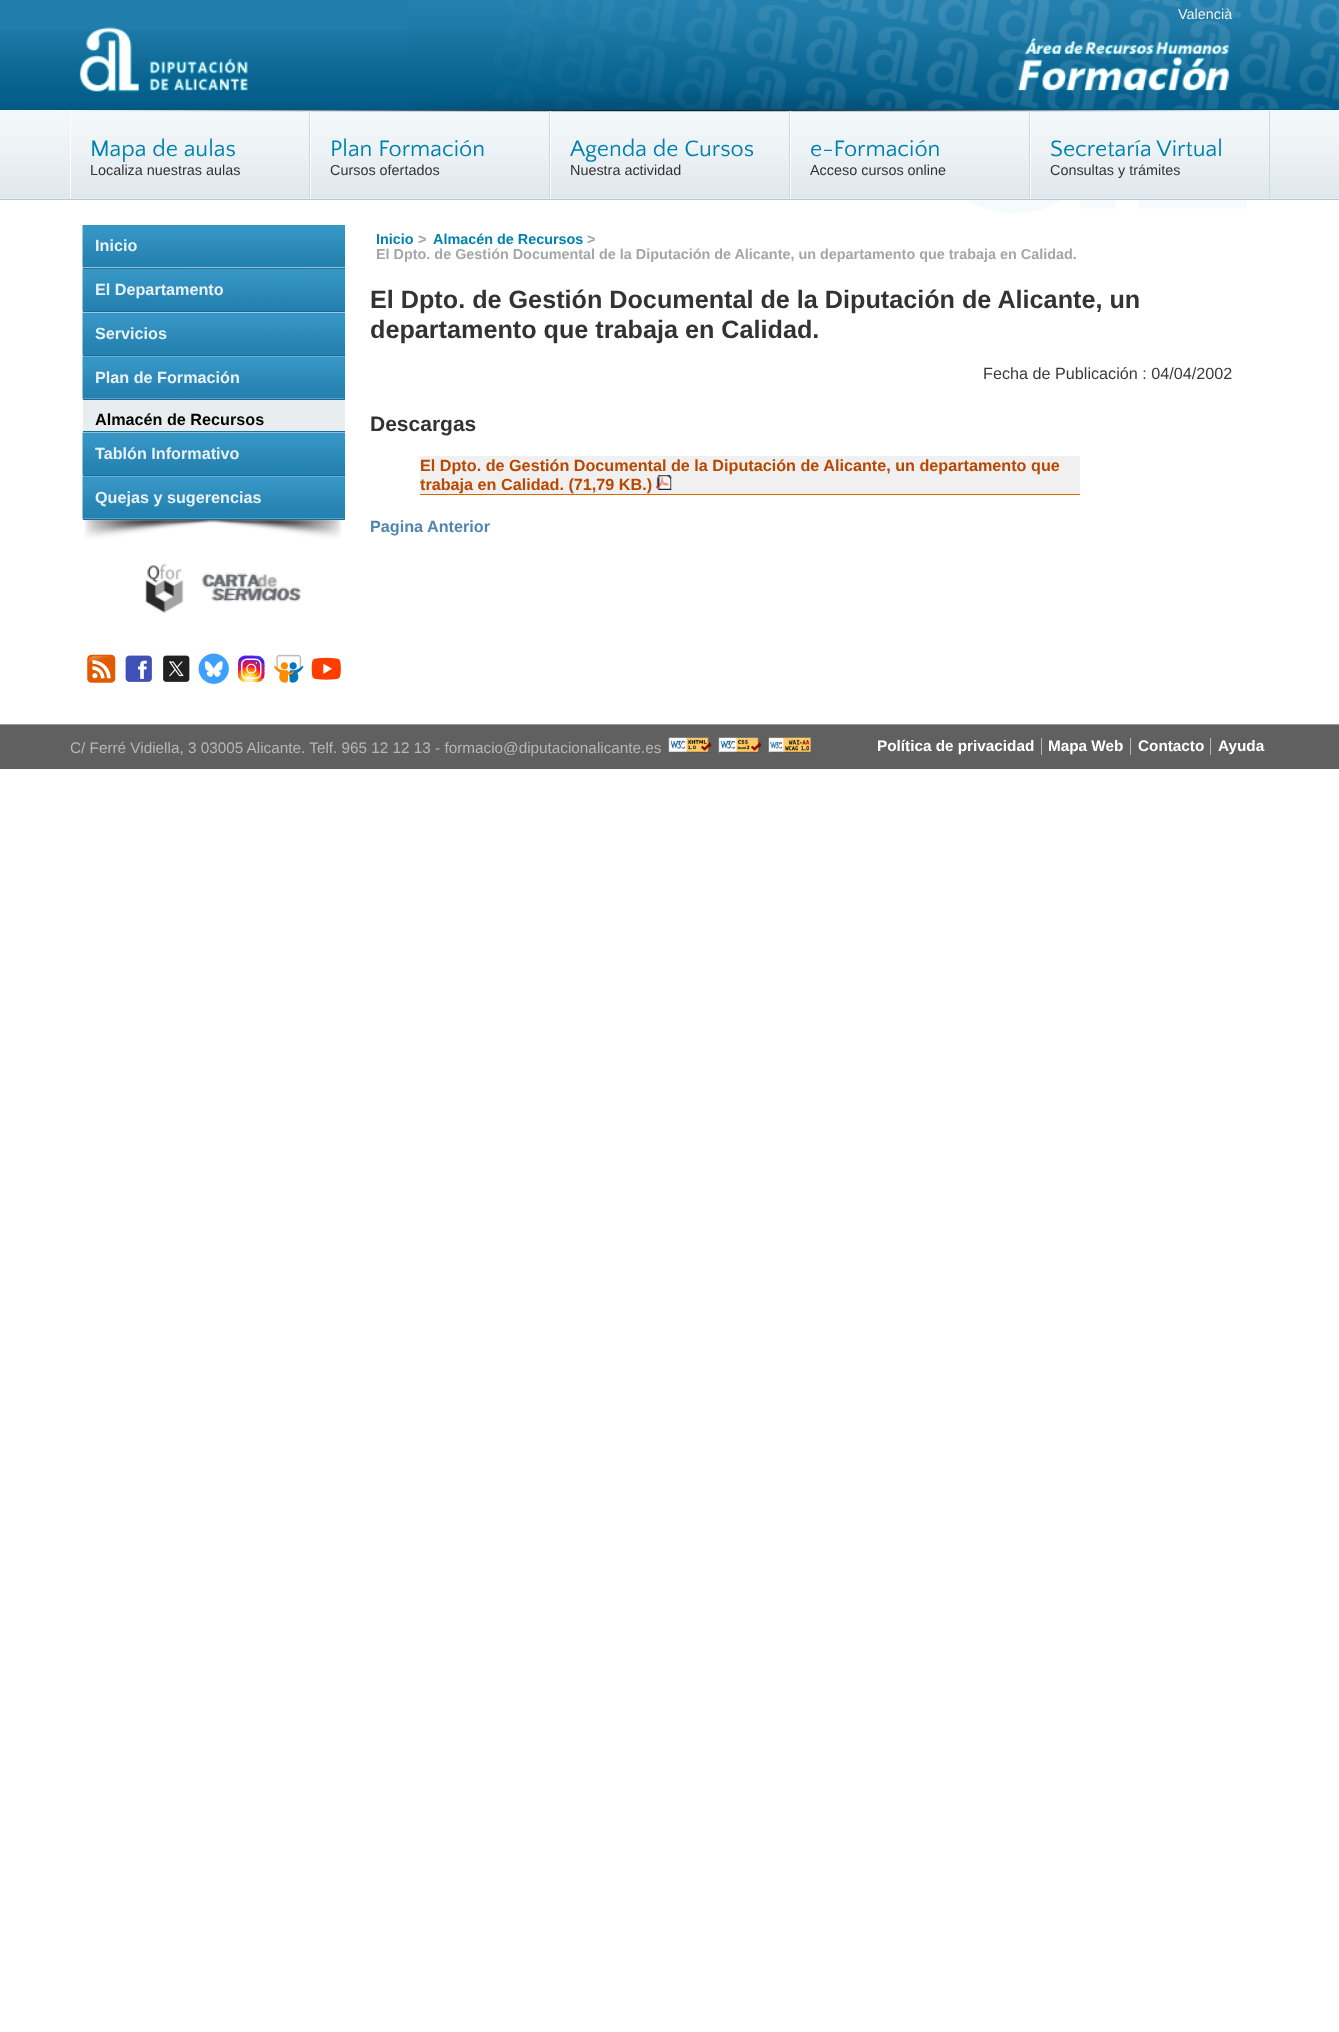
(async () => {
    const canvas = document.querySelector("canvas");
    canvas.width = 1339;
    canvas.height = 2032;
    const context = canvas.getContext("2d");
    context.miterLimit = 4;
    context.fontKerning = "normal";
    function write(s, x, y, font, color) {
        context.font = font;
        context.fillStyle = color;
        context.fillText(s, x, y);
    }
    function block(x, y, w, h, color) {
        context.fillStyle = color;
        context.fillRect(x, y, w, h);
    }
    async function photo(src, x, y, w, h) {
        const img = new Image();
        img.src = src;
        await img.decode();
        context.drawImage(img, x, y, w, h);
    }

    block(0, 0, 1339, 2032, "rgb(255, 255, 255)");
    block(0, 0, 407, 30, "rgb(33, 125, 171)");
    await photo("media/1.png", 0, 30, 407, 80);
    await photo("media/2.png", 407, 0, 932, 110);
    write("Valencià", 1178, 19, "14.4px Liberation Sans", "rgb(239, 239, 239)");
    await photo("media/3.png", 1018, 37, 211, 54);
    await photo("media/4.png", 79, 27, 169, 65);
    await photo("media/5.png", 0, 110, 1339, 89);
    block(0, 199, 1339, 1, "rgb(182, 203, 211)");
    await photo("media/6.png", 73, 110, 1195, 2);
    block(309, 111, 1, 87, "rgb(201, 219, 226)");
    block(70, 111, 1, 87, "rgb(255, 255, 255)");
    write("Mapa de aulas", 90, 156, "23.5px Quattrocento Sans", "rgb(0, 129, 174)");
    write("Localiza nuestras aulas", 90, 175, "14.4px Liberation Sans", "rgb(51, 51, 51)");
    block(549, 111, 1, 87, "rgb(201, 219, 226)");
    block(310, 111, 1, 87, "rgb(255, 255, 255)");
    write("Plan Formación", 330, 156, "23.5px Quattrocento Sans", "rgb(0, 129, 174)");
    write("Cursos ofertados", 330, 175, "14.4px Liberation Sans", "rgb(51, 51, 51)");
    block(789, 111, 1, 87, "rgb(201, 219, 226)");
    block(550, 111, 1, 87, "rgb(255, 255, 255)");
    write("Agenda de Cursos", 570, 156, "23.5px Quattrocento Sans", "rgb(0, 129, 174)");
    write("Nuestra actividad", 570, 175, "14.4px Liberation Sans", "rgb(51, 51, 51)");
    block(1029, 111, 1, 87, "rgb(201, 219, 226)");
    block(790, 111, 1, 87, "rgb(255, 255, 255)");
    write("e-Formación", 810, 156, "23.5px Quattrocento Sans", "rgb(0, 129, 174)");
    write("Acceso cursos online", 810, 175, "14.4px Liberation Sans", "rgb(51, 51, 51)");
    block(1269, 111, 1, 87, "rgb(201, 219, 226)");
    block(1030, 111, 1, 87, "rgb(255, 255, 255)");
    write("Secretaría Virtual", 1050, 156, "23.5px Quattrocento Sans", "rgb(0, 129, 174)");
    write("Consultas y trámites", 1050, 175, "14.4px Liberation Sans", "rgb(51, 51, 51)");
    await photo("media/7.png", 968, 200, 279, 14);
    await photo("media/8.png", 84, 520, 258, 19);
    await photo("media/9.png", 82, 225, 263, 43);
    block(83, 268, 262, 1, "rgb(25, 109, 150)");
    write("Inicio", 95, 251, "bold 16.2px Liberation Sans", "rgb(231, 241, 246)");
    await photo("media/10.png", 82, 268, 263, 44);
    block(83, 311, 262, 1, "rgb(25, 109, 150)");
    write("El Departamento", 95, 295, "bold 16.2px Liberation Sans", "rgb(231, 241, 246)");
    await photo("media/11.png", 82, 312, 263, 43);
    block(83, 355, 262, 1, "rgb(25, 109, 150)");
    write("Servicios", 95, 339, "bold 16.2px Liberation Sans", "rgb(231, 241, 246)");
    await photo("media/12.png", 82, 356, 263, 43);
    block(83, 399, 262, 1, "rgb(25, 109, 150)");
    write("Plan de Formación", 95, 383, "bold 16.2px Liberation Sans", "rgb(231, 241, 246)");
    block(83, 400, 262, 33, "rgb(232, 237, 239)");
    block(83, 431, 262, 1, "rgb(25, 109, 150)");
    write("Almacén de Recursos", 95, 425, "bold 16.2px Liberation Sans", "rgb(0, 0, 0)");
    await photo("media/13.png", 82, 432, 263, 43);
    block(83, 475, 262, 1, "rgb(25, 109, 150)");
    write("Tablón Informativo", 95, 459, "bold 16.2px Liberation Sans", "rgb(231, 241, 246)");
    await photo("media/14.png", 82, 476, 263, 43);
    block(83, 519, 262, 1, "rgb(25, 109, 150)");
    write("Quejas y sugerencias", 95, 503, "bold 16.2px Liberation Sans", "rgb(231, 241, 246)");
    await photo("media/15.png", 145, 563, 39, 50);
    await photo("media/16.png", 201, 572, 101, 30);
    await photo("media/17.png", 87, 654, 29, 29);
    await photo("media/18.png", 125, 655, 27, 27);
    await photo("media/19.png", 163, 655, 27, 27);
    await photo("media/20.png", 198, 653, 31, 31);
    await photo("media/21.png", 238, 655, 27, 27);
    await photo("media/22.png", 274, 654, 30, 29);
    await photo("media/23.png", 311, 657, 30, 23);
    write("Inicio", 376, 244, "bold 14.4px Liberation Sans", "rgb(0, 129, 174)");
    write(">", 418, 244, "bold 14.4px Liberation Sans", "rgb(164, 166, 167)");
    write("Almacén de Recursos", 433, 244, "bold 14.4px Liberation Sans", "rgb(0, 129, 174)");
    write(">", 587, 244, "bold 14.4px Liberation Sans", "rgb(164, 166, 167)");
    write("El Dpto. de Gestión Documental de la Diputación de Alicante, un departamento que trabaja en Calidad.", 376, 259, "bold 14.4px Liberation Sans", "rgb(164, 166, 167)");
    write("El Dpto. de Gestión Documental de la Diputación de Alicante, un", 370, 308, "bold 25.2px Liberation Sans", "rgb(51, 51, 51)");
    write("departamento que trabaja en Calidad.", 370, 338, "bold 25.2px Liberation Sans", "rgb(51, 51, 51)");
    write("Fecha de Publicación : 04/04/2002", 983, 379, "16.2px Liberation Sans", "rgb(56, 58, 61)");
    write("Descargas", 370, 431, "bold 21px Liberation Sans", "rgb(51, 51, 51)");
    block(420, 456, 660, 38, "rgb(240, 240, 240)");
    block(420, 494, 660, 1, "rgb(217, 103, 0)");
    write("El Dpto. de Gestión Documental de la Diputación de Alicante, un departamento que", 420, 471, "bold 16.2px Liberation Sans", "rgb(185, 71, 0)");
    write("trabaja en Calidad. (71,79 KB.)", 420, 490, "bold 16.2px Liberation Sans", "rgb(185, 71, 0)");
    await photo("media/24.png", 656, 475, 16, 15);
    write("Pagina Anterior", 370, 532, "bold 16.2px Liberation Sans", "rgb(80, 134, 175)");
    block(0, 725, 1339, 44, "rgb(96, 96, 96)");
    block(0, 724, 1339, 1, "rgb(153, 153, 153)");
    write("C/ Ferré Vidiella, 3 03005 Alicante. Telf. 965 12 12 13 - formacio@diputacionalicante.es", 70, 753, "15.3px Liberation Sans", "rgb(184, 183, 183)");
    await photo("media/25.png", 668, 737, 44, 16);
    await photo("media/26.png", 718, 737, 44, 16);
    await photo("media/27.png", 768, 737, 44, 16);
    write("Política de privacidad", 877, 751, "bold 15.3px Liberation Sans", "rgb(255, 255, 255)");
    block(1041, 738, 1, 17, "rgb(184, 183, 183)");
    write("Mapa Web", 1048, 751, "bold 15.3px Liberation Sans", "rgb(255, 255, 255)");
    block(1130, 738, 1, 17, "rgb(184, 183, 183)");
    write("Contacto", 1138, 751, "bold 15.3px Liberation Sans", "rgb(255, 255, 255)");
    block(1210, 738, 1, 17, "rgb(184, 183, 183)");
    write("Ayuda", 1218, 751, "bold 15.3px Liberation Sans", "rgb(255, 255, 255)");
})();
